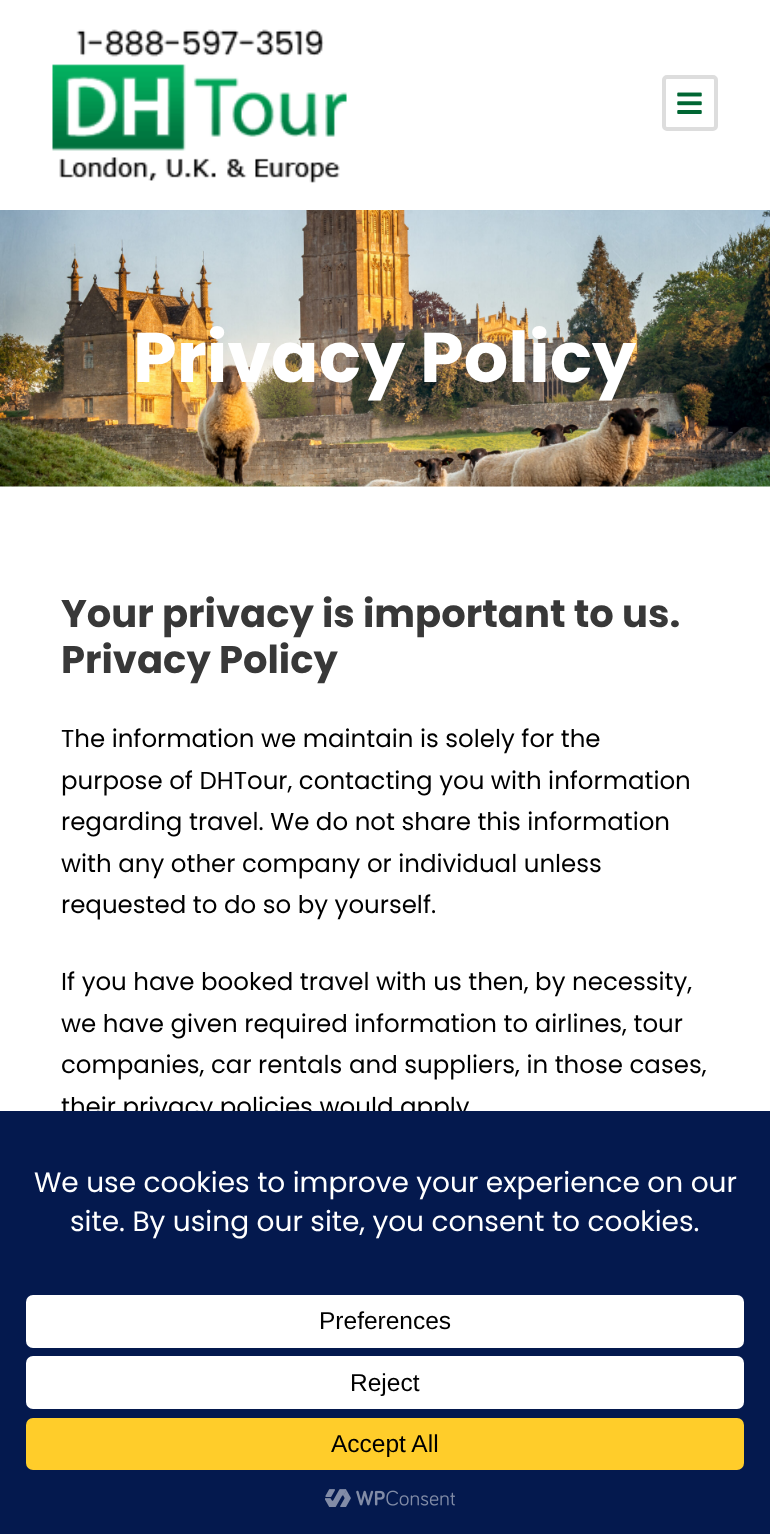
(async () => {
    const canvas = document.querySelector("canvas");
    canvas.width = 770;
    canvas.height = 1534;
    const context = canvas.getContext("2d");
    context.miterLimit = 4;
    context.fontKerning = "normal";
    function write(s, x, y, font, color) {
        context.font = font;
        context.fillStyle = color;
        context.fillText(s, x, y);
    }
    function block(x, y, w, h, color) {
        context.fillStyle = color;
        context.fillRect(x, y, w, h);
    }
    function card(x, y, w, h, r, color) {
        context.fillStyle = color;
        context.beginPath();
        context.roundRect(x, y, w, h, r);
        context.fill();
    }
    async function photo(src, x, y, w, h) {
        const img = new Image();
        img.src = src;
        await img.decode();
        context.drawImage(img, x, y, w, h);
    }

    block(0, 0, 770, 1534, "rgb(255, 255, 255)");
    await photo("media/1.png", 52, 29, 295, 154);
    context.beginPath();
    context.roundRect(664, 77, 52, 52, 3);
    context.strokeStyle = "rgb(221, 221, 221)";
    context.lineWidth = 4;
    context.stroke();
    await photo("media/2.png", 677, 92, 25, 22);
    await photo("media/3.png", 0, 210, 770, 277);
    write("Privacy Policy", 133, 382, "bold 70px Poppins", "rgb(255, 255, 255)");
    write("Your privacy is important to us.", 61, 627, "bold 38.5px Poppins", "rgb(56, 56, 56)");
    write("Privacy Policy", 61, 673, "bold 38.5px Poppins", "rgb(56, 56, 56)");
    write("The information we maintain is solely for the", 61, 747, "24.5px Poppins", "rgb(0, 0, 0)");
    write("purpose of DHTour, contacting you with information", 61, 789, "24.5px Poppins", "rgb(0, 0, 0)");
    write("regarding travel. We do not share this information", 61, 830, "24.5px Poppins", "rgb(0, 0, 0)");
    write("with any other company or individual unless", 61, 872, "24.5px Poppins", "rgb(0, 0, 0)");
    write("requested to do so by yourself.", 61, 913, "24.5px Poppins", "rgb(0, 0, 0)");
    write("If you have booked travel with us then, by necessity,", 61, 990, "24.5px Poppins", "rgb(0, 0, 0)");
    write("we have given required information to airlines, tour", 61, 1032, "24.5px Poppins", "rgb(0, 0, 0)");
    write("companies, car rentals and suppliers, in those cases,", 61, 1073, "24.5px Poppins", "rgb(0, 0, 0)");
    write("their privacy policies would apply", 61, 1115, "24.5px Poppins", "rgb(0, 0, 0)");
    block(0, 1111, 770, 423, "rgb(4, 25, 78)");
    write("We use cookies to improve your experience on our", 34, 1192, "28px Poppins", "rgb(255, 255, 255)");
    write("site. By using our site, you consent to cookies.", 70, 1231, "28px Poppins", "rgb(255, 255, 255)");
    card(26, 1295, 718, 53, 7, "rgb(255, 255, 255)");
    write("Preferences", 319, 1329, "24.5px Liberation Sans", "rgb(0, 0, 0)");
    card(26, 1356, 718, 53, 7, "rgb(255, 255, 255)");
    write("Reject", 350, 1391, "24.5px Liberation Sans", "rgb(0, 0, 0)");
    card(26, 1418, 718, 52, 7, "rgb(255, 205, 42)");
    write("Accept All", 331, 1452, "24.5px Liberation Sans", "rgb(0, 0, 0)");
    await photo("media/4.png", 325, 1489, 130, 18);
})();
